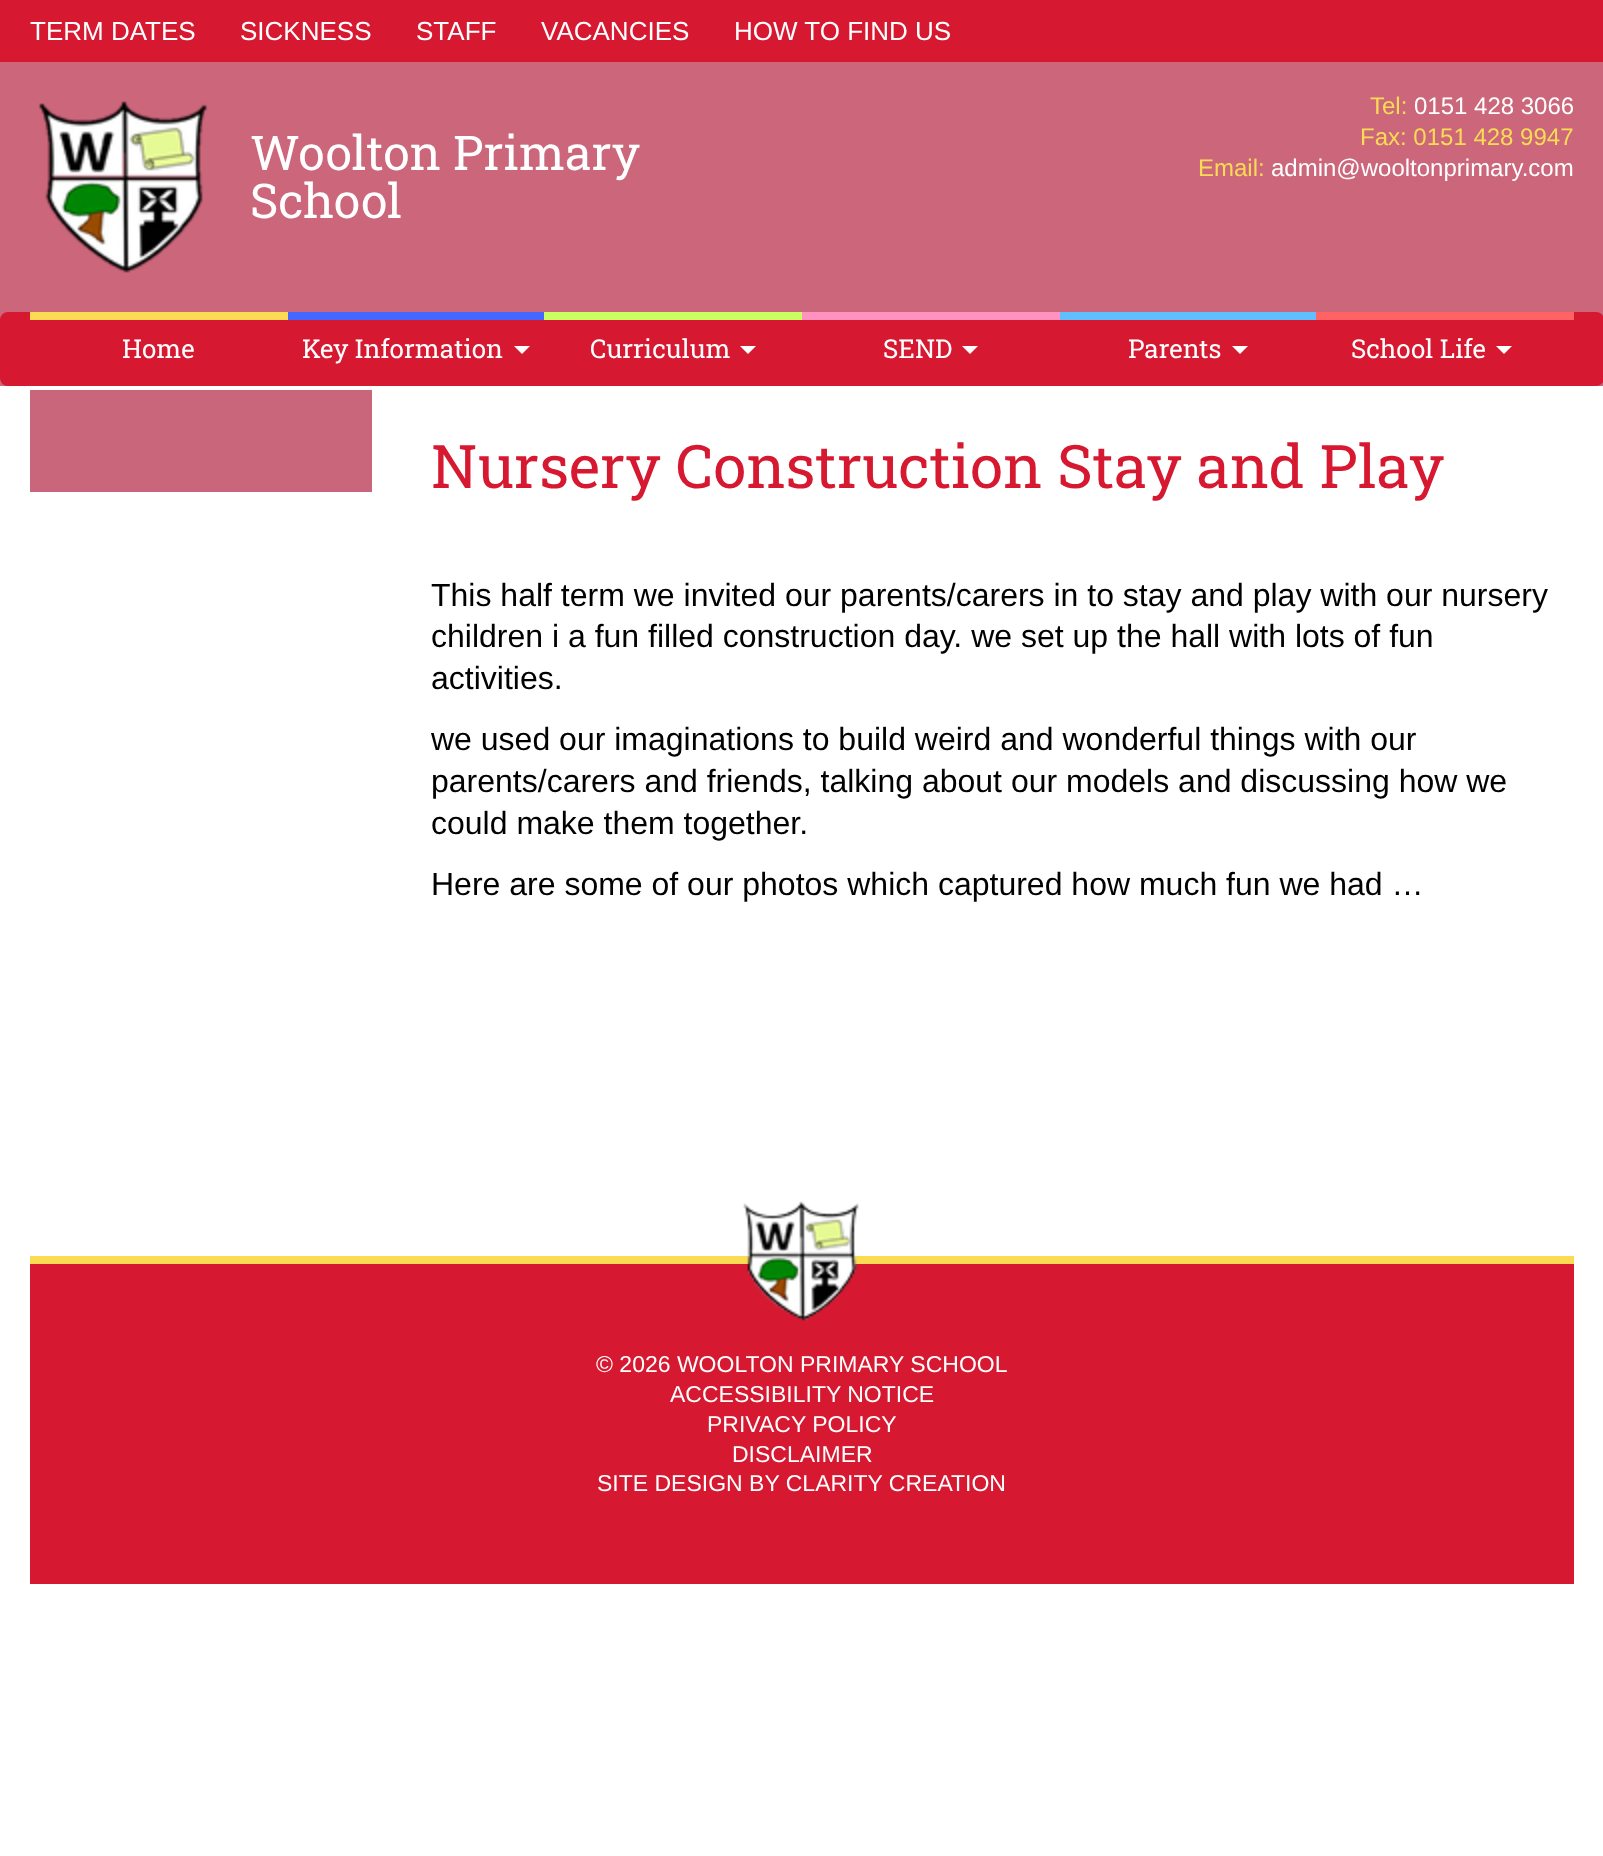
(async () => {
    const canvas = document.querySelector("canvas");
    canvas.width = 1603;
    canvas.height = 1856;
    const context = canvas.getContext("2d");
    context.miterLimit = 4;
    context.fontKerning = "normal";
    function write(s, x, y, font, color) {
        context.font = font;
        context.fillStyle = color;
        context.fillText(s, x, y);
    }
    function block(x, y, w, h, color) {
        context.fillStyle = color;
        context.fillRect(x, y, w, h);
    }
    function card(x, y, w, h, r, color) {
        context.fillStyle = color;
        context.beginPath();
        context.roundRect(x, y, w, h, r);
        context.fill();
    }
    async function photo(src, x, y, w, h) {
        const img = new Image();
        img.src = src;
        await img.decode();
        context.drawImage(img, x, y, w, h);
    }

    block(0, 0, 1603, 1856, "rgb(255, 255, 255)");
    block(0, 62, 1603, 324, "rgb(203, 102, 123)");
    block(0, 0, 1603, 62, "rgb(215, 24, 49)");
    write("TERM DATES", 30, 40, "26px Liberation Sans", "rgb(255, 255, 255)");
    write("SICKNESS", 240, 40, "26px Liberation Sans", "rgb(255, 255, 255)");
    write("STAFF", 416, 40, "26px Liberation Sans", "rgb(255, 255, 255)");
    write("VACANCIES", 541, 40, "26px Liberation Sans", "rgb(255, 255, 255)");
    write("HOW TO FIND US", 734, 40, "26px Liberation Sans", "rgb(255, 255, 255)");
    await photo("media/1.png", 38, 101, 170, 172);
    write("Woolton Primary", 250, 170, "48px Roboto Slab", "rgb(255, 255, 255)");
    write("School", 250, 218, "48px Roboto Slab", "rgb(255, 255, 255)");
    write("Tel:", 1370, 114, "24px Liberation Sans", "rgb(252, 219, 84)");
    write("0151 428 3066", 1414, 114, "24px Liberation Sans", "rgb(255, 255, 255)");
    write("Fax: 0151 428 9947", 1360, 145, "24px Liberation Sans", "rgb(252, 219, 84)");
    write("Email:", 1198, 176, "24px Liberation Sans", "rgb(252, 219, 84)");
    write("admin@wooltonprimary.com", 1271, 176, "24px Liberation Sans", "rgb(255, 255, 255)");
    card(0, 312, 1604, 74, 8, "rgb(215, 24, 49)");
    block(30, 312, 258, 8, "rgb(252, 219, 84)");
    write("Home", 122, 358, "26px Roboto Slab", "rgb(255, 255, 255)");
    block(288, 312, 256, 8, "rgb(67, 103, 255)");
    write("Key Information", 302, 358, "26px Roboto Slab", "rgb(255, 255, 255)");
    context.beginPath();
    context.moveTo(514, 346);
    context.lineTo(530, 346);
    context.lineTo(522, 354);
    context.closePath();
    context.fill();
    block(544, 312, 258, 8, "rgb(201, 255, 97)");
    write("Curriculum", 590, 358, "26px Roboto Slab", "rgb(255, 255, 255)");
    context.beginPath();
    context.moveTo(740, 346);
    context.lineTo(756, 346);
    context.lineTo(748, 354);
    context.closePath();
    context.fill();
    block(802, 312, 258, 8, "rgb(255, 146, 190)");
    write("SEND", 883, 358, "26px Roboto Slab", "rgb(255, 255, 255)");
    context.beginPath();
    context.moveTo(962, 346);
    context.lineTo(978, 346);
    context.lineTo(970, 354);
    context.closePath();
    context.fill();
    block(1060, 312, 256, 8, "rgb(95, 191, 255)");
    write("Parents", 1128, 358, "26px Roboto Slab", "rgb(255, 255, 255)");
    context.beginPath();
    context.moveTo(1232, 346);
    context.lineTo(1248, 346);
    context.lineTo(1240, 354);
    context.closePath();
    context.fill();
    block(1316, 312, 258, 8, "rgb(255, 99, 100)");
    write("School Life", 1351, 358, "26px Roboto Slab", "rgb(255, 255, 255)");
    context.beginPath();
    context.moveTo(1496, 346);
    context.lineTo(1512, 346);
    context.lineTo(1504, 354);
    context.closePath();
    context.fill();
    block(30, 390, 342, 102, "rgb(202, 102, 123)");
    write("Nursery Construction Stay and Play", 431, 488, "60px Roboto Slab", "rgb(215, 24, 49)");
    write("This half term we invited our parents/carers in to stay and play with our nursery", 431, 606, "32px Liberation Sans", "rgb(0, 0, 0)");
    write("children i a fun filled construction day. we set up the hall with lots of fun", 431, 647, "32px Liberation Sans", "rgb(0, 0, 0)");
    write("activities.", 431, 689, "32px Liberation Sans", "rgb(0, 0, 0)");
    write("we used our imaginations to build weird and wonderful things with our", 431, 750, "32px Liberation Sans", "rgb(0, 0, 0)");
    write("parents/carers and friends, talking about our models and discussing how we", 431, 792, "32px Liberation Sans", "rgb(0, 0, 0)");
    write("could make them together.", 431, 834, "32px Liberation Sans", "rgb(0, 0, 0)");
    write("Here are some of our photos which captured how much fun we had …", 431, 895, "32px Liberation Sans", "rgb(0, 0, 0)");
    block(30, 1264, 1544, 320, "rgb(215, 24, 49)");
    block(30, 1256, 1544, 8, "rgb(252, 219, 84)");
    await photo("media/2.png", 743, 1201, 116, 120);
    write("© 2026 WOOLTON PRIMARY SCHOOL", 596, 1372, "23px Liberation Sans", "rgb(255, 255, 255)");
    write("ACCESSIBILITY NOTICE", 670, 1402, "23px Liberation Sans", "rgb(255, 255, 255)");
    write("PRIVACY POLICY", 707, 1432, "23px Liberation Sans", "rgb(255, 255, 255)");
    write("DISCLAIMER", 732, 1462, "23px Liberation Sans", "rgb(255, 255, 255)");
    write("SITE DESIGN BY CLARITY CREATION", 597, 1491, "23px Liberation Sans", "rgb(255, 255, 255)");
})();
